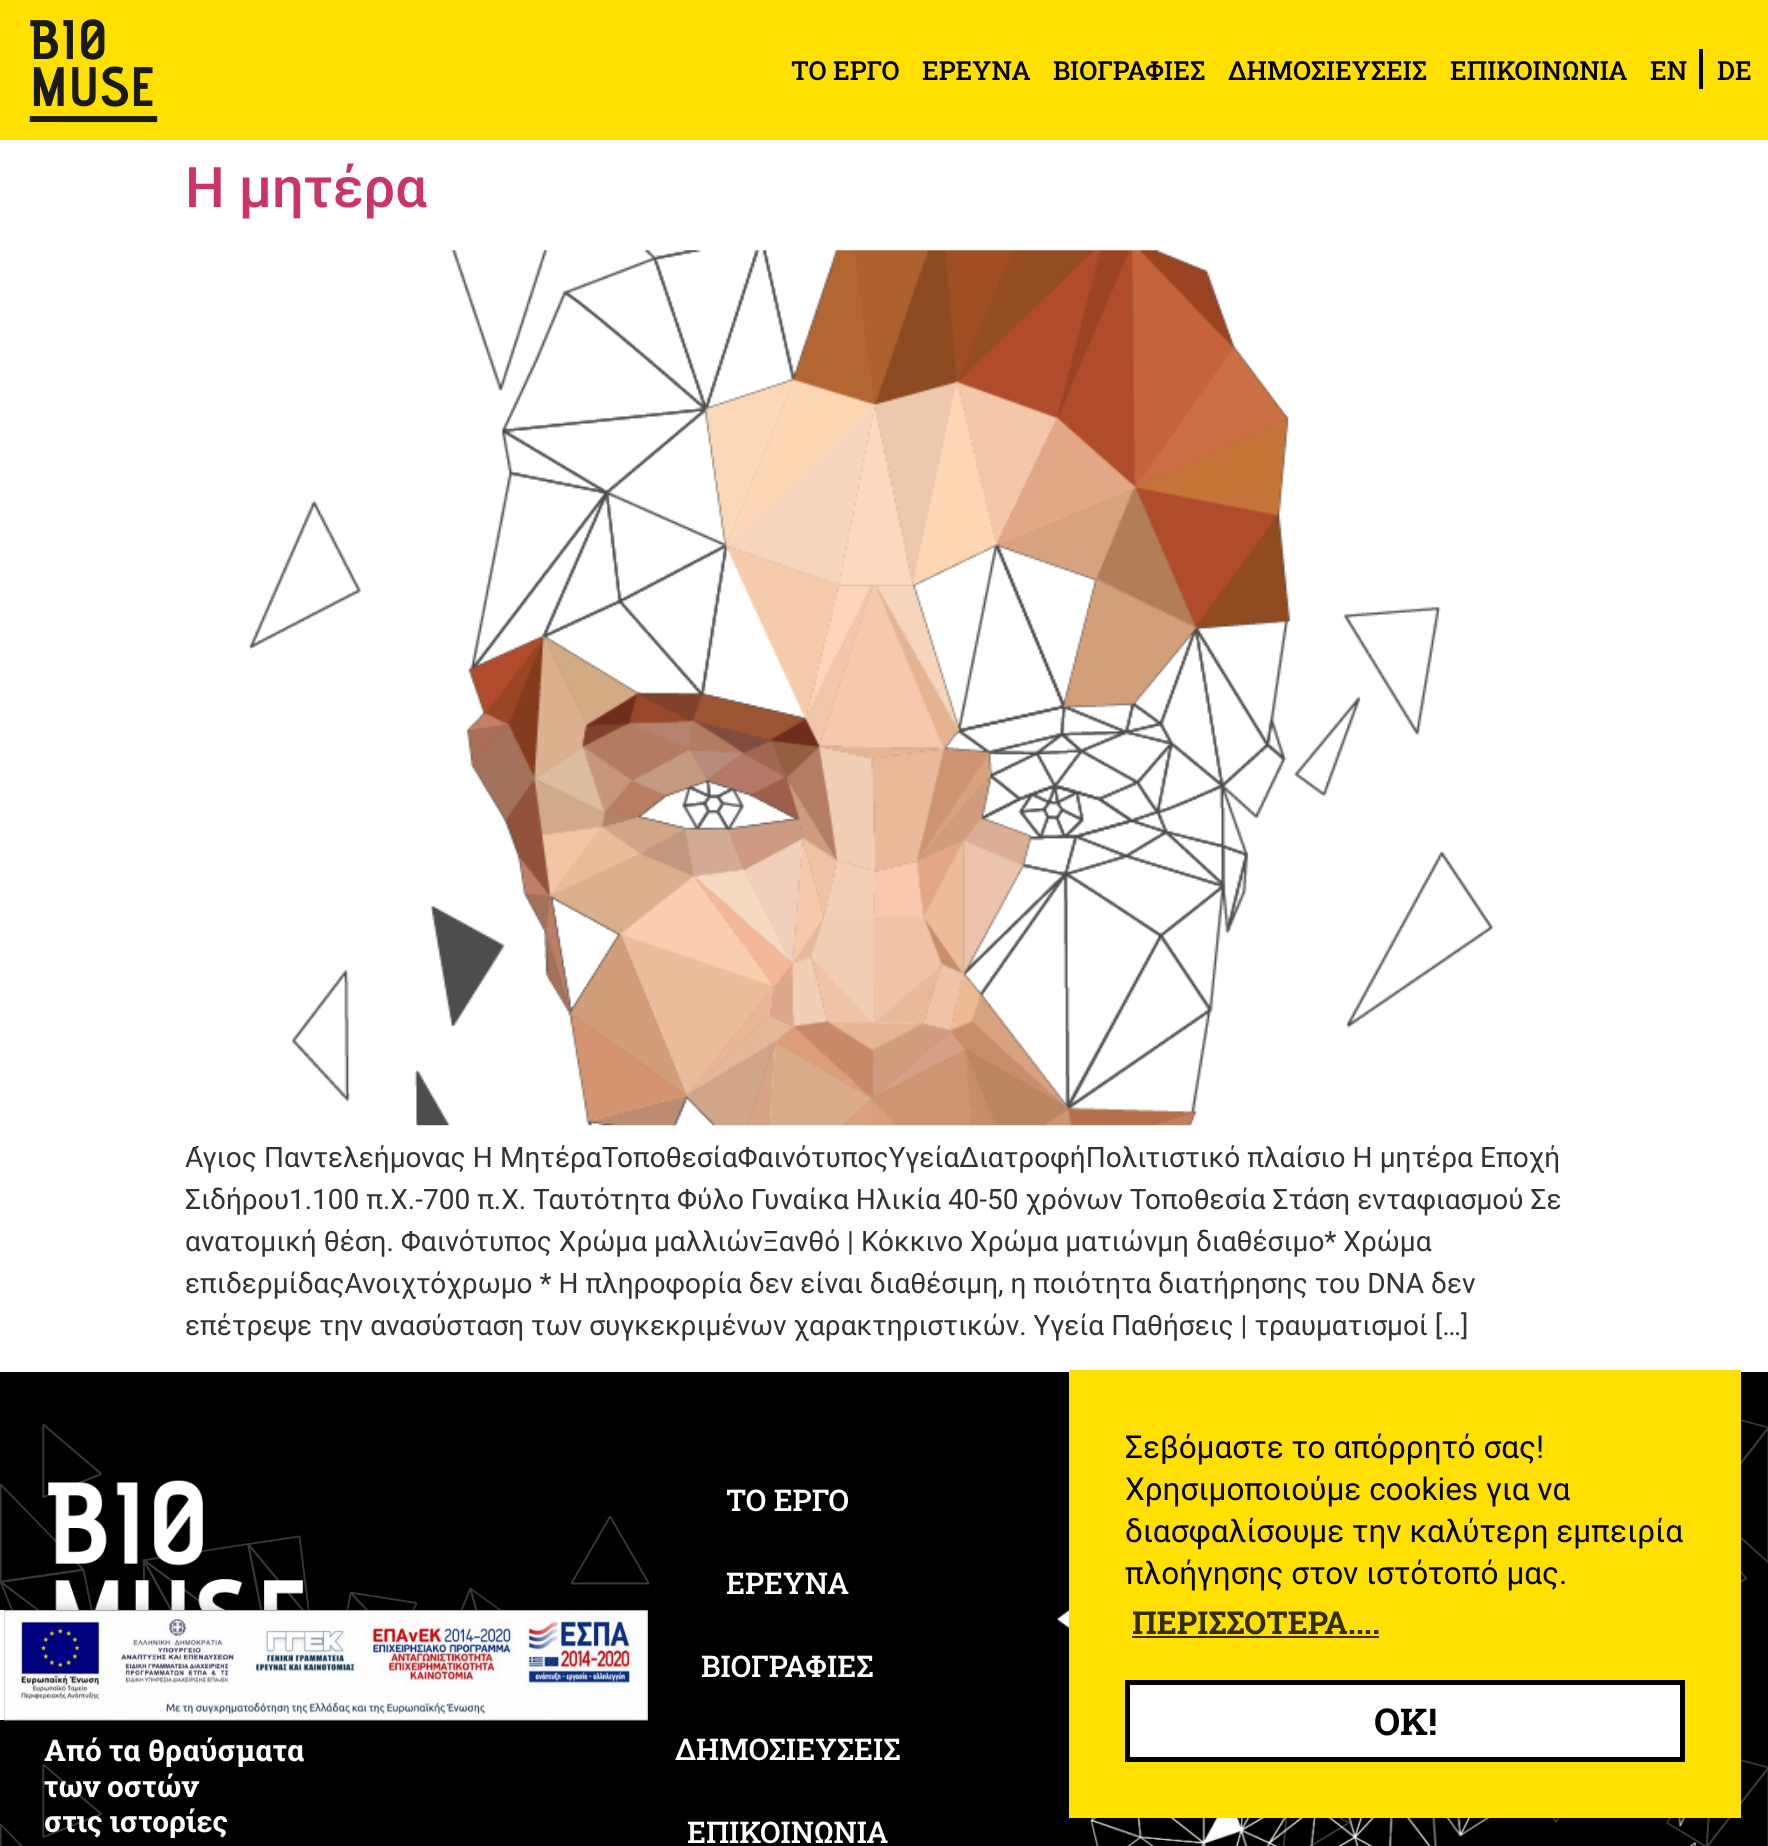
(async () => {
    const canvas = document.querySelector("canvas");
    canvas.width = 1768;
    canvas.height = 1846;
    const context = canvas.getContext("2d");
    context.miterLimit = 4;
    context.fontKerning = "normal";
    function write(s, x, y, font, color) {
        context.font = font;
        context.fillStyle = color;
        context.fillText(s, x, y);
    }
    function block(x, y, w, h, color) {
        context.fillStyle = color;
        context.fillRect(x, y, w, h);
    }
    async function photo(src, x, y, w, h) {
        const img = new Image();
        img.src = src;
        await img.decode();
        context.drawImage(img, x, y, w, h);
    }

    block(0, 0, 1768, 1846, "rgb(255, 255, 255)");
    block(0, 0, 1768, 140, "rgb(255, 224, 0)");
    await photo("media/1.png", 29, 19, 129, 104);
    write("ΤΟ ΕΡΓΟ", 791, 80, "500 26.25px Roboto Slab", "rgb(0, 0, 0)");
    write("ΕΡΕΥΝΑ", 922, 80, "500 26.25px Roboto Slab", "rgb(0, 0, 0)");
    write("ΒΙΟΓΡΑΦΙΕΣ", 1053, 80, "500 26.25px Roboto Slab", "rgb(0, 0, 0)");
    write("ΔΗΜΟΣΙΕΥΣΕΙΣ", 1228, 80, "500 26.25px Roboto Slab", "rgb(0, 0, 0)");
    write("ΕΠΙΚΟΙΝΩΝΙΑ", 1450, 80, "500 26.25px Roboto Slab", "rgb(0, 0, 0)");
    block(1699, 49, 4, 40, "rgb(0, 0, 0)");
    write("EN", 1650, 80, "500 26.25px Roboto Slab", "rgb(0, 0, 0)");
    write("DE", 1717, 80, "500 26.25px Roboto Slab", "rgb(0, 0, 0)");
    write("Η μητέρα", 185, 207, "500 56px Roboto", "rgb(204, 51, 102)");
    await photo("media/2.png", 248, 250, 1246, 876);
    context.wordSpacing = "0.25px";
    write("Άγιος Παντελεήμονας Η ΜητέραΤοποθεσίαΦαινότυποςΥγείαΔιατροφήΠολιτιστικό πλαίσιο Η μητέρα Εποχή", 185, 1167, "28px Roboto", "rgb(51, 51, 51)");
    context.wordSpacing = "0px";
    write("Σιδήρου1.100 π.Χ.-700 π.Χ. Ταυτότητα Φύλο Γυναίκα Ηλικία 40-50 χρόνων Τοποθεσία Στάση ενταφιασμού Σε", 185, 1209, "28px Roboto", "rgb(51, 51, 51)");
    write("ανατομική θέση. Φαινότυπος Χρώμα μαλλιώνΞανθό | Κόκκινο Χρώμα ματιώνμη διαθέσιμο* Χρώμα", 185, 1251, "28px Roboto", "rgb(51, 51, 51)");
    write("επιδερμίδαςΑνοιχτόχρωμο * Η πληροφορία δεν είναι διαθέσιμη, η ποιότητα διατήρησης του DNA δεν", 185, 1293, "28px Roboto", "rgb(51, 51, 51)");
    write("επέτρεψε την ανασύσταση των συγκεκριμένων χαρακτηριστικών. Υγεία Παθήσεις | τραυματισμοί […]", 185, 1335, "28px Roboto", "rgb(51, 51, 51)");
    block(0, 1372, 1768, 474, "rgb(0, 0, 0)");
    await photo("media/3.png", 0, 1419, 1768, 427);
    await photo("media/4.png", 48, 1480, 256, 130);
    write("Από τα θραύσματα", 44, 1761, "bold 29.75px Roboto Slab", "rgb(255, 255, 255)");
    write("των οστών", 44, 1797, "bold 29.75px Roboto Slab", "rgb(255, 255, 255)");
    write("στις ιστορίες", 44, 1832, "bold 29.75px Roboto Slab", "rgb(255, 255, 255)");
    context.fillStyle = "rgba(0, 0, 0, 0.27)";
    context.filter = "blur(7px)";
    context.beginPath();
    context.roundRect(-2, 1610, 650, 110, 5);
    context.fill();
    context.filter = "none";
    context.fillStyle = "rgb(255, 255, 255)";
    context.beginPath();
    context.moveTo(-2, 1610);
    context.lineTo(643, 1610);
    context.bezierCurveTo(646, 1610, 648, 1612, 648, 1615);
    context.lineTo(648, 1715);
    context.bezierCurveTo(648, 1718, 646, 1720, 643, 1720);
    context.lineTo(-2, 1720);
    context.closePath();
    context.fill();
    await photo("media/5.png", 4, 1610, 644, 111);
    write("ΤΟ ΕΡΓΟ", 726, 1511, "500 29.75px Roboto Slab", "rgb(255, 255, 255)");
    write("ΕΡΕΥΝΑ", 726, 1594, "500 29.75px Roboto Slab", "rgb(255, 255, 255)");
    write("ΒΙΟΓΡΑΦΙΕΣ", 701, 1677, "500 29.75px Roboto Slab", "rgb(255, 255, 255)");
    write("ΔΗΜΟΣΙΕΥΣΕΙΣ", 675, 1760, "500 29.75px Roboto Slab", "rgb(255, 255, 255)");
    write("ΕΠΙΚΟΙΝΩΝΙΑ", 687, 1843, "500 29.75px Roboto Slab", "rgb(255, 255, 255)");
    await photo("media/6.png", 1057, 1609, 640, 237);
    block(1069, 1370, 672, 448, "rgb(255, 224, 0)");
    write("Σεβόμαστε το απόρρητό σας!", 1125, 1458, "31.5px Roboto", "rgb(0, 0, 0)");
    write("Χρησιμοποιούμε cookies για να", 1125, 1500, "31.5px Roboto", "rgb(0, 0, 0)");
    write("διασφαλίσουμε την καλύτερη εμπειρία", 1125, 1542, "31.5px Roboto", "rgb(0, 0, 0)");
    write("πλοήγησης στον ιστότοπό μας.", 1125, 1584, "31.5px Roboto", "rgb(0, 0, 0)");
    write("ΠΕΡΙΣΣΟΤΕΡΑ....", 1132, 1634, "bold 31.5px Roboto Slab", "rgb(51, 45, 0)");
    block(1132, 1636, 247, 2, "rgb(51, 45, 0)");
    context.fillStyle = "rgb(255, 255, 255)";
    context.beginPath();
    context.rect(1127.5, 1682.5, 555, 77);
    context.fill();
    context.strokeStyle = "rgb(0, 0, 0)";
    context.lineWidth = 5;
    context.stroke();
    write("OK!", 1374, 1735, "bold 37px Roboto Slab", "rgb(0, 0, 0)");
})();
